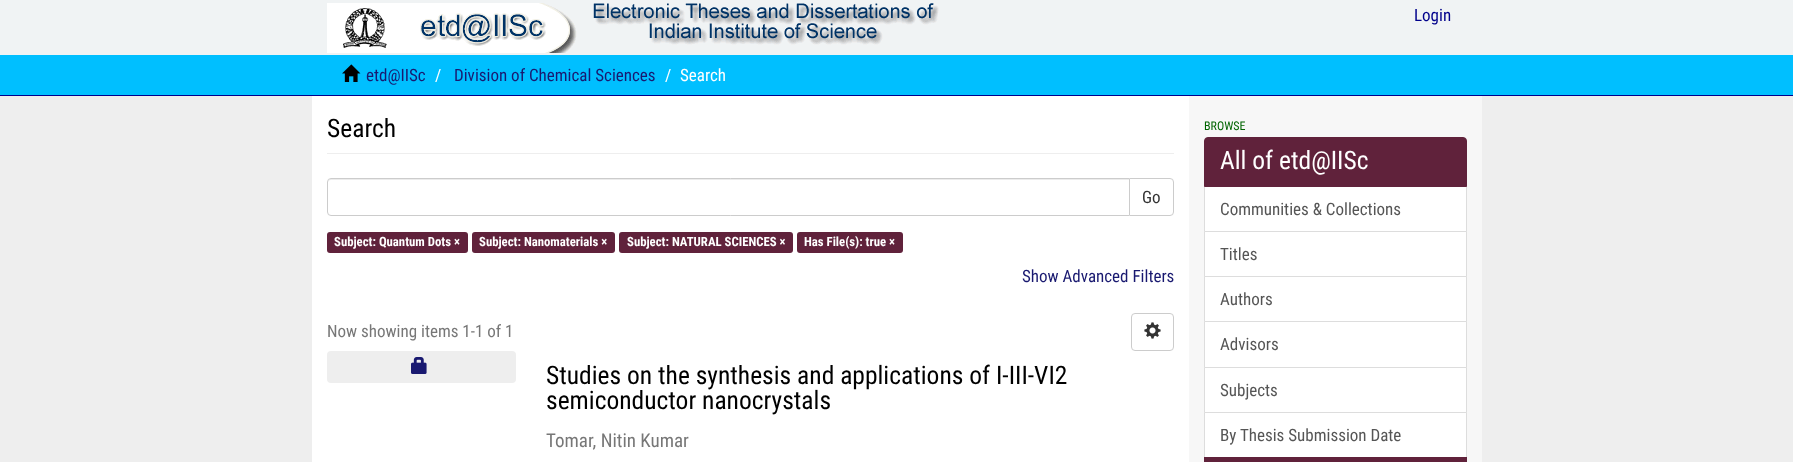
(async () => {
    const canvas = document.querySelector("canvas");
    canvas.width = 1793;
    canvas.height = 462;
    const context = canvas.getContext("2d");
    context.miterLimit = 4;
    context.fontKerning = "normal";
    function write(s, x, y, font, color) {
        context.font = font;
        context.fillStyle = color;
        context.fillText(s, x, y);
    }
    function block(x, y, w, h, color) {
        context.fillStyle = color;
        context.fillRect(x, y, w, h);
    }
    function card(x, y, w, h, r, color) {
        context.fillStyle = color;
        context.beginPath();
        context.roundRect(x, y, w, h, r);
        context.fill();
    }
    async function photo(src, x, y, w, h) {
        const img = new Image();
        img.src = src;
        await img.decode();
        context.drawImage(img, x, y, w, h);
    }

    block(0, 0, 1793, 462, "rgb(238, 238, 238)");
    block(0, 0, 1793, 55, "rgb(240, 243, 244)");
    await photo("media/1.png", 327, 3, 250, 50);
    await photo("media/2.png", 593, 3, 346, 42);
    write("Login", 1414, 21, "17px Roboto Condensed", "rgb(0, 0, 139)");
    block(0, 55, 1793, 40, "rgb(0, 191, 255)");
    block(0, 95, 1793, 1, "rgb(0, 0, 139)");
    await photo("media/3.png", 342, 64, 19, 18);
    write("etd@IISc", 366, 81, "17px Roboto Condensed", "rgb(25, 25, 112)");
    write("/", 435, 81, "17px Roboto Condensed", "rgb(255, 255, 255)");
    write("Division of Chemical Sciences", 454, 81, "17px Roboto Condensed", "rgb(25, 25, 112)");
    write("/", 665, 81, "17px Roboto Condensed", "rgb(255, 255, 255)");
    write("Search", 680, 81, "17px Roboto Condensed", "rgb(255, 255, 255)");
    block(1189, 96, 293, 366, "rgb(247, 247, 247)");
    block(312, 96, 877, 366, "rgb(255, 255, 255)");
    block(327, 153, 847, 1, "rgb(238, 238, 238)");
    write("Search", 327, 137, "25.5px Roboto Condensed", "rgb(0, 0, 0)");
    context.beginPath();
    context.roundRect(1129.5, 178.5, 44, 37, [0, 3.5, 3.5, 0]);
    context.strokeStyle = "rgb(204, 204, 204)";
    context.stroke();
    context.fillStyle = "rgb(255, 255, 255)";
    context.beginPath();
    context.roundRect(327, 178, 803, 38, [4, 0, 0, 4]);
    context.fill();
    context.fillStyle = "rgb(236, 236, 236)";
    context.beginPath();
    context.moveTo(331, 180);
    context.lineTo(1129, 180);
    context.lineTo(1129, 179);
    context.lineTo(331, 179);
    context.bezierCurveTo(329, 179, 328, 181, 328, 183);
    context.bezierCurveTo(328, 181, 329, 180, 331, 180);
    context.closePath();
    context.fill();
    context.beginPath();
    context.roundRect(327.5, 178.5, 802, 37, [3.5, 0, 0, 3.5]);
    context.stroke();
    write("Go", 1142, 203, "17px Roboto Condensed", "rgb(51, 51, 51)");
    card(327, 232, 141, 21, 3, "rgb(96, 34, 59)");
    write("Subject: Quantum Dots ×", 334, 246, "bold 12.75px Roboto Condensed", "rgb(255, 255, 255)");
    card(472, 232, 143, 21, 3, "rgb(96, 34, 59)");
    write("Subject: Nanomaterials ×", 479, 246, "bold 12.75px Roboto Condensed", "rgb(255, 255, 255)");
    card(619, 232, 174, 21, 3, "rgb(96, 34, 59)");
    write("Subject: NATURAL SCIENCES ×", 627, 246, "bold 12.75px Roboto Condensed", "rgb(255, 255, 255)");
    card(797, 232, 106, 21, 3, "rgb(96, 34, 59)");
    write("Has File(s): true ×", 804, 246, "bold 12.75px Roboto Condensed", "rgb(255, 255, 255)");
    write("Show Advanced Filters", 1022, 282, "17px Roboto Condensed", "rgb(25, 25, 112)");
    write("Now showing items 1-1 of 1", 327, 337, "17px Roboto Condensed", "rgb(119, 119, 119)");
    context.beginPath();
    context.roundRect(1131.5, 313.5, 42, 37, 3.5);
    context.stroke();
    await photo("media/4.png", 1144, 322, 17, 17);
    card(327, 351, 189, 32, 4, "rgb(238, 238, 238)");
    await photo("media/5.png", 411, 357, 16, 17);
    write("Studies on the synthesis and applications of I-III-VI2", 546, 384, "25.5px Roboto Condensed", "rgb(0, 0, 0)");
    write("semiconductor nanocrystals", 546, 409, "25.5px Roboto Condensed", "rgb(0, 0, 0)");
    write("Tomar, Nitin Kumar", 546, 447, "19px Roboto Condensed", "rgb(119, 119, 119)");
    write("BROWSE", 1204, 130, "12px Roboto Condensed", "rgb(0, 100, 0)");
    context.fillStyle = "rgb(255, 255, 255)";
    context.beginPath();
    context.rect(1204.5, 186.5, 262, 45);
    context.fill();
    context.strokeStyle = "rgb(221, 221, 221)";
    context.stroke();
    context.fillStyle = "rgb(96, 34, 59)";
    context.beginPath();
    context.roundRect(1204.5, 137.5, 262, 49, [3.5, 3.5, 0, 0]);
    context.fill();
    context.strokeStyle = "rgb(96, 34, 59)";
    context.stroke();
    write("All of etd@IISc", 1220, 169, "25.5px Roboto Condensed", "rgb(255, 255, 255)");
    write("Communities & Collections", 1220, 215, "17px Roboto Condensed", "rgb(85, 85, 85)");
    context.fillStyle = "rgb(255, 255, 255)";
    context.beginPath();
    context.rect(1204.5, 231.5, 262, 45);
    context.fill();
    context.strokeStyle = "rgb(221, 221, 221)";
    context.stroke();
    write("Titles", 1220, 260, "17px Roboto Condensed", "rgb(85, 85, 85)");
    context.fillStyle = "rgb(255, 255, 255)";
    context.beginPath();
    context.rect(1204.5, 276.5, 262, 45);
    context.fill();
    context.stroke();
    write("Authors", 1220, 305, "17px Roboto Condensed", "rgb(85, 85, 85)");
    context.fillStyle = "rgb(255, 255, 255)";
    context.beginPath();
    context.rect(1204.5, 321.5, 262, 46);
    context.fill();
    context.stroke();
    write("Advisors", 1220, 350, "17px Roboto Condensed", "rgb(85, 85, 85)");
    context.fillStyle = "rgb(255, 255, 255)";
    context.beginPath();
    context.rect(1204.5, 367.5, 262, 45);
    context.fill();
    context.stroke();
    write("Subjects", 1220, 396, "17px Roboto Condensed", "rgb(85, 85, 85)");
    context.fillStyle = "rgb(255, 255, 255)";
    context.beginPath();
    context.rect(1204.5, 412.5, 262, 45);
    context.fill();
    context.stroke();
    write("By Thesis Submission Date", 1220, 441, "17px Roboto Condensed", "rgb(85, 85, 85)");
    block(1204, 457, 263, 5, "rgb(96, 34, 59)");
})();
